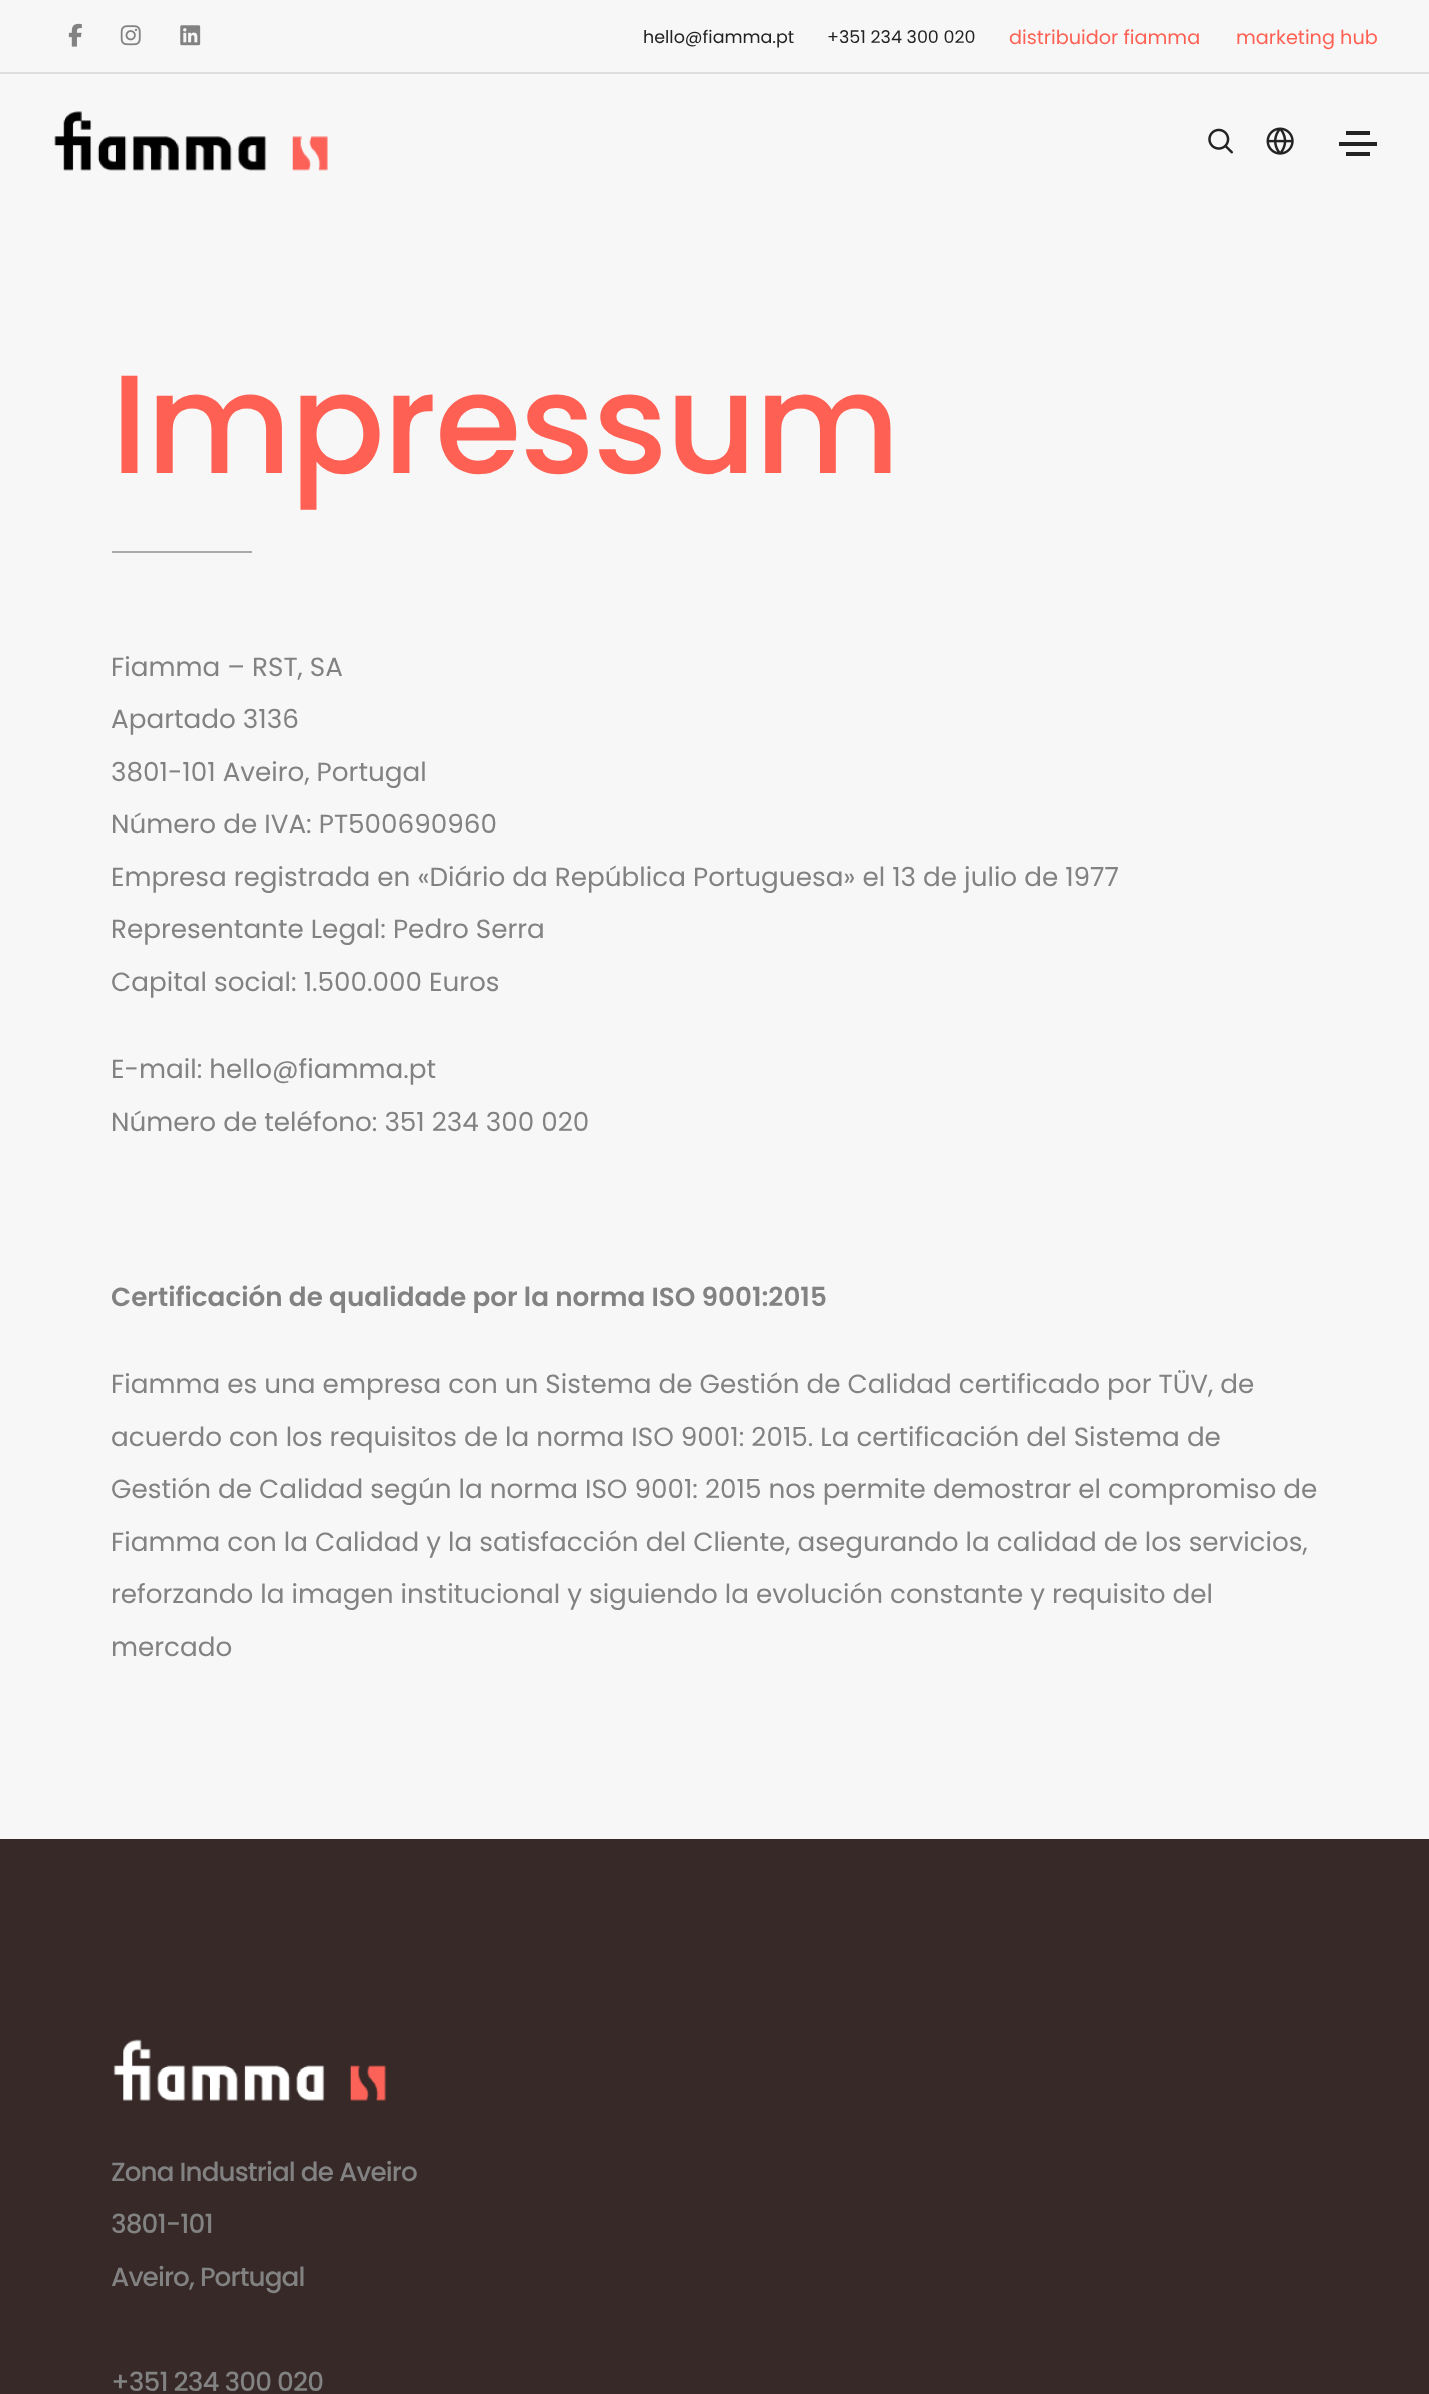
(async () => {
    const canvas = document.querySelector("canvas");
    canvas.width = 1429;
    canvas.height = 2394;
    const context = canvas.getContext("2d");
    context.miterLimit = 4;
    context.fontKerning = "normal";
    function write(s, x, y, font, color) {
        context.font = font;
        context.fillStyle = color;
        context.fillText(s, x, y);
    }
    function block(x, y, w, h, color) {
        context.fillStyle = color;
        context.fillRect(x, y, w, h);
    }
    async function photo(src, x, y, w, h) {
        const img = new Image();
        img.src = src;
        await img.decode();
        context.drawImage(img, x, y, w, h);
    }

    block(0, 0, 1429, 2394, "rgb(247, 247, 247)");
    block(0, 72, 1429, 2, "rgb(222, 222, 222)");
    await photo("media/1.png", 68, 23, 14, 24);
    await photo("media/2.png", 120, 25, 21, 21);
    await photo("media/3.png", 180, 25, 21, 21);
    write("hello@fiamma.pt", 643, 43, "17.5px Poppins", "rgb(35, 35, 35)");
    write("+351 234 300 020", 827, 43, "17.5px Poppins", "rgb(35, 35, 35)");
    write("distribuidor fiamma", 1009, 44, "19.25px Poppins", "rgb(254, 97, 83)");
    write("marketing hub", 1236, 44, "19.25px Poppins", "rgb(254, 97, 83)");
    await photo("media/4.png", 54, 111, 274, 60);
    await photo("media/5.png", 1208, 128, 25, 26);
    await photo("media/6.png", 1266, 127, 28, 28);
    block(1346, 131, 24, 4, "rgb(35, 35, 35)");
    block(1339, 142, 38, 4, "rgb(35, 35, 35)");
    block(1346, 152, 24, 4, "rgb(35, 35, 35)");
    context.letterSpacing = "-1.75px";
    write("Impressum", 111, 473, "500 140px Poppins", "rgb(254, 97, 83)");
    block(112, 551, 140, 2, "rgb(173, 169, 169)");
    context.letterSpacing = "0px";
    write("Fiamma – RST, SA", 111, 676, "26.25px Poppins", "rgb(130, 130, 130)");
    write("Apartado 3136", 111, 728, "26.25px Poppins", "rgb(130, 130, 130)");
    write("3801-101 Aveiro, Portugal", 111, 781, "26.25px Poppins", "rgb(130, 130, 130)");
    write("Número de IVA: PT500690960", 111, 833, "26.25px Poppins", "rgb(130, 130, 130)");
    write("Empresa registrada en «Diário da República Portuguesa» el 13 de julio de 1977", 111, 886, "26.25px Poppins", "rgb(130, 130, 130)");
    write("Representante Legal: Pedro Serra", 111, 938, "26.25px Poppins", "rgb(130, 130, 130)");
    write("Capital social: 1.500.000 Euros", 111, 991, "26.25px Poppins", "rgb(130, 130, 130)");
    write("E-mail: hello@fiamma.pt", 111, 1078, "26.25px Poppins", "rgb(130, 130, 130)");
    write("Número de teléfono: 351 234 300 020", 111, 1131, "26.25px Poppins", "rgb(130, 130, 130)");
    write("Certificación de qualidade por la norma ISO 9001:2015", 111, 1306, "600 26.25px Poppins", "rgb(130, 130, 130)");
    write("Fiamma es una empresa con un Sistema de Gestión de Calidad certificado por TÜV, de", 111, 1393, "26.25px Poppins", "rgb(130, 130, 130)");
    write("acuerdo con los requisitos de la norma ISO 9001: 2015. La certificación del Sistema de", 111, 1446, "26.25px Poppins", "rgb(130, 130, 130)");
    write("Gestión de Calidad según la norma ISO 9001: 2015 nos permite demostrar el compromiso de", 111, 1498, "26.25px Poppins", "rgb(130, 130, 130)");
    write("Fiamma con la Calidad y la satisfacción del Cliente, asegurando la calidad de los servicios,", 111, 1551, "26.25px Poppins", "rgb(130, 130, 130)");
    write("reforzando la imagen institucional y siguiendo la evolución constante y requisito del", 111, 1603, "26.25px Poppins", "rgb(130, 130, 130)");
    write("mercado", 111, 1656, "26.25px Poppins", "rgb(130, 130, 130)");
    block(0, 1839, 1429, 555, "rgb(54, 41, 40)");
    await photo("media/7.png", 113, 2039, 273, 62);
    context.letterSpacing = "-0.9px";
    write("Zona Industrial de Aveiro", 111, 2181, "500 26.25px Poppins", "rgb(130, 130, 130)");
    write("3801-101", 111, 2233, "500 26.25px Poppins", "rgb(130, 130, 130)");
    write("Aveiro, Portugal", 111, 2286, "500 26.25px Poppins", "rgb(130, 130, 130)");
    write("+351 234 300 020", 111, 2391, "500 26.25px Poppins", "rgb(130, 130, 130)");
})();
